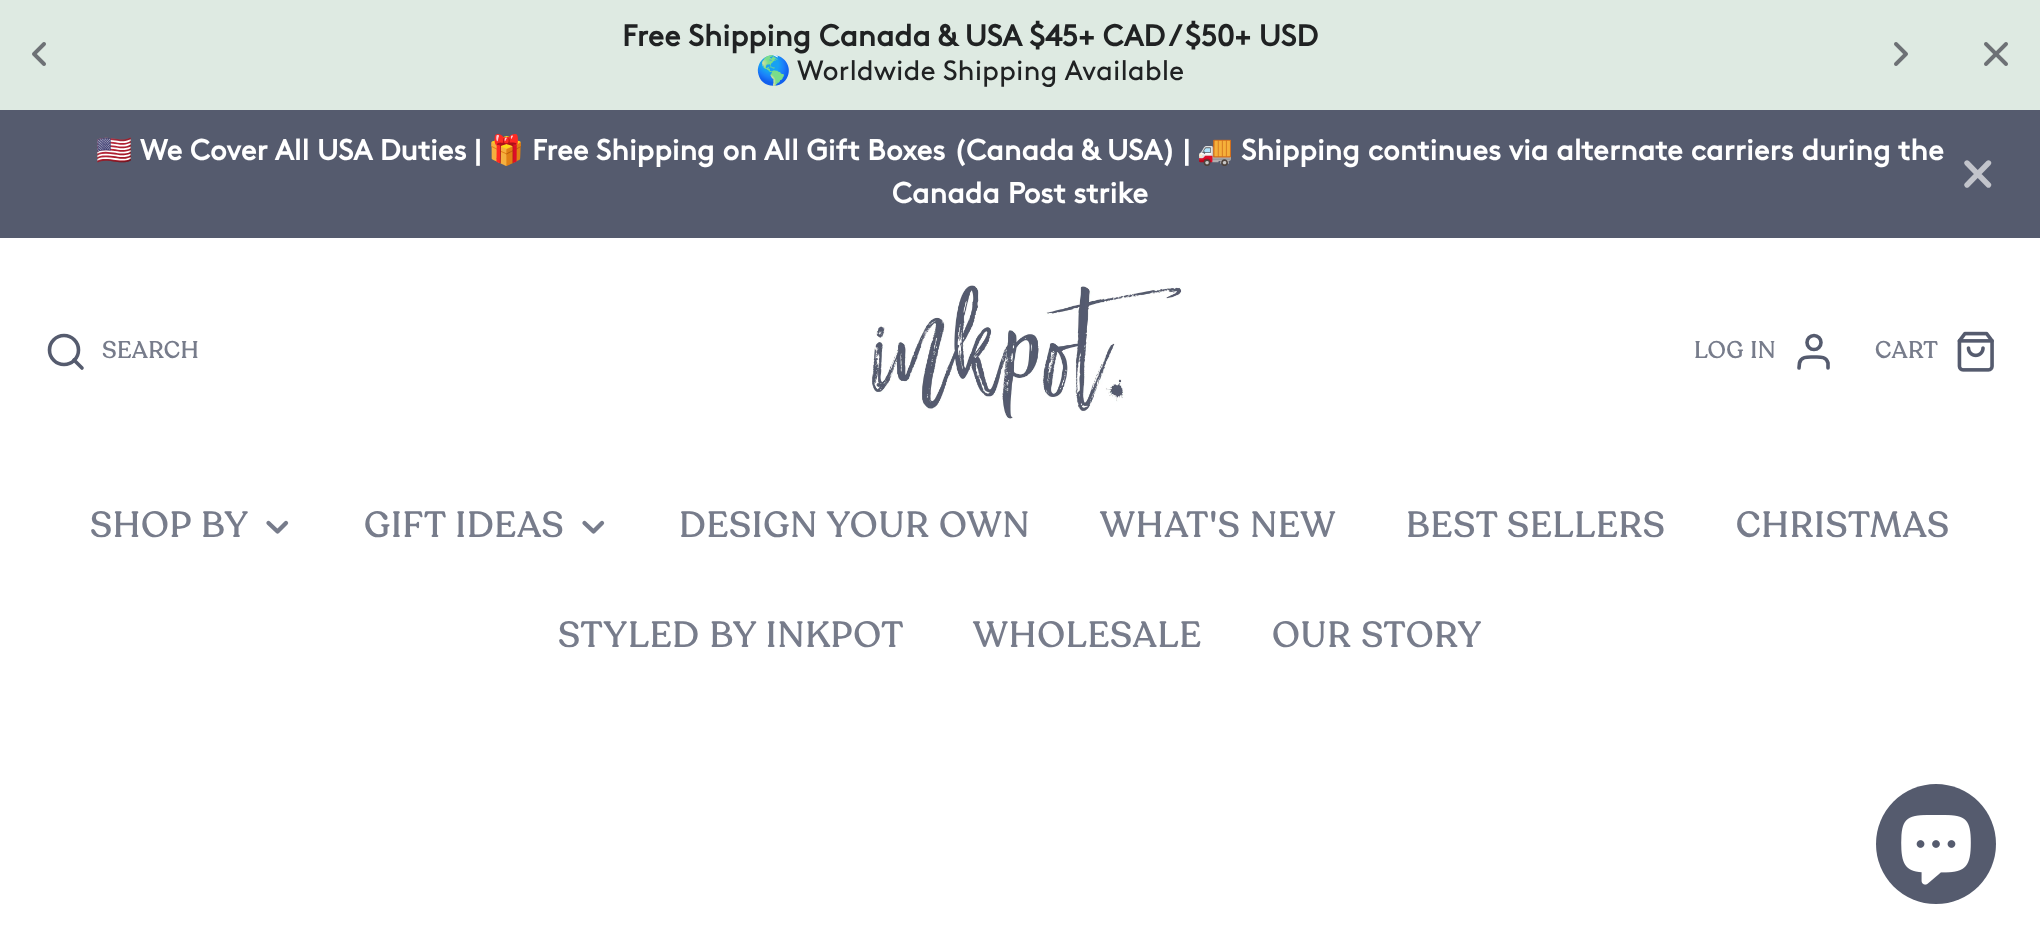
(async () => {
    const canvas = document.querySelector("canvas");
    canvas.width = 2040;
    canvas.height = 946;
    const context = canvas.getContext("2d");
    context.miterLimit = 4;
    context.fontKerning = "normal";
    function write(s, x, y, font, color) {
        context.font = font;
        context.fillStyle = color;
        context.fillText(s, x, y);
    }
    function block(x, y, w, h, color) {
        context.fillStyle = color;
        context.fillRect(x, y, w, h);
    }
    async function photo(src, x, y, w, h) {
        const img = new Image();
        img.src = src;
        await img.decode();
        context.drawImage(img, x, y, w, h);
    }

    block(0, 0, 2040, 946, "rgb(255, 255, 255)");
    block(0, 0, 2040, 110, "rgb(222, 234, 226)");
    write("Free Shipping Canada & USA $45+ CAD / $50+ USD", 622, 46, "bold 30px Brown", "rgb(32, 34, 35)");
    write("🌎", 756, 80, "28px Noto Color Emoji", "rgb(32, 34, 35)");
    write("Worldwide Shipping Available", 797, 80, "28px Brown", "rgb(32, 34, 35)");
    await photo("media/1.png", 32, 42, 14, 24);
    await photo("media/2.png", 1894, 42, 14, 24);
    await photo("media/3.png", 1984, 42, 24, 24);
    block(0, 110, 2040, 128, "rgb(85, 91, 110)");
    write("🇺🇸", 96, 160, "bold 29px Noto Color Emoji", "rgb(255, 255, 255)");
    write("We Cover All USA Duties |", 140, 160, "bold 29px Brown", "rgb(255, 255, 255)");
    write("🎁", 488, 160, "bold 29px Noto Color Emoji", "rgb(255, 255, 255)");
    write("Free Shipping on All Gift Boxes (Canada & USA) |", 532, 160, "bold 29px Brown", "rgb(255, 255, 255)");
    write("🚚", 1197, 160, "bold 29px Noto Color Emoji", "rgb(255, 255, 255)");
    write("Shipping continues via alternate carriers during the", 1241, 160, "bold 29px Brown", "rgb(255, 255, 255)");
    write("Canada Post strike", 892, 203, "bold 29px Brown", "rgb(255, 255, 255)");
    context.beginPath();
    context.moveTo(1988.5, 163);
    context.lineTo(1967, 185);
    context.moveTo(1967, 163);
    context.lineTo(1988.5, 185);
    context.strokeStyle = "rgb(194, 196, 203)";
    context.lineWidth = 5.4;
    context.lineCap = "round";
    context.lineJoin = "round";
    context.stroke();
    context.beginPath();
    context.arc(64, 350, 14.5, 0, Math.PI * 2);
    context.strokeStyle = "rgb(85, 91, 110)";
    context.lineWidth = 3.6;
    context.stroke();
    context.beginPath();
    context.moveTo(82, 368);
    context.lineTo(74, 360);
    context.stroke();
    context.letterSpacing = "1px";
    write("SEARCH", 102, 358, "bold 23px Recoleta", "rgb(119, 124, 139)");
    await photo("media/4.png", 872, 285, 310, 134);
    write("LOG IN", 1694, 358, "bold 23px Recoleta", "rgb(119, 124, 139)");
    context.beginPath();
    context.arc(1814, 342.5, 7, 0, Math.PI * 2);
    context.stroke();
    context.beginPath();
    context.moveTo(1828, 368);
    context.lineTo(1828, 363);
    context.bezierCurveTo(1826.5, 356, 1819, 357, 1814, 357);
    context.bezierCurveTo(1808.5, 357, 1801, 356, 1799.5, 363);
    context.lineTo(1799, 368);
    context.stroke();
    write("CART", 1875, 358, "bold 23px Recoleta", "rgb(119, 124, 139)");
    await photo("media/5.png", 1957, 331, 37, 41);
    context.letterSpacing = "1.75px";
    write("SHOP BY", 90, 537, "bold 34.75px Recoleta", "rgb(119, 124, 139)");
    context.beginPath();
    context.moveTo(268.5, 523);
    context.lineTo(277.5, 531.5);
    context.lineTo(286, 523);
    context.strokeStyle = "rgb(119, 124, 139)";
    context.lineWidth = 4.3;
    context.stroke();
    write("GIFT IDEAS", 364, 537, "bold 34.75px Recoleta", "rgb(119, 124, 139)");
    context.beginPath();
    context.moveTo(584.5, 523);
    context.lineTo(593.5, 531.5);
    context.lineTo(602, 523);
    context.stroke();
    write("DESIGN YOUR OWN", 679, 537, "bold 34.75px Recoleta", "rgb(119, 124, 139)");
    write("WHAT'S NEW", 1100, 537, "bold 34.75px Recoleta", "rgb(119, 124, 139)");
    write("BEST SELLERS", 1406, 537, "bold 34.75px Recoleta", "rgb(119, 124, 139)");
    write("CHRISTMAS", 1736, 537, "bold 34.75px Recoleta", "rgb(119, 124, 139)");
    write("STYLED BY INKPOT", 558, 647, "bold 34.75px Recoleta", "rgb(119, 124, 139)");
    write("WHOLESALE", 973, 647, "bold 34.75px Recoleta", "rgb(119, 124, 139)");
    write("OUR STORY", 1272, 647, "bold 34.75px Recoleta", "rgb(119, 124, 139)");
    context.fillStyle = "rgb(85, 91, 110)";
    context.beginPath();
    context.arc(1936, 844, 60, 0, Math.PI * 2);
    context.fill();
    await photo("media/6.png", 1901, 815, 70, 70);
})();
